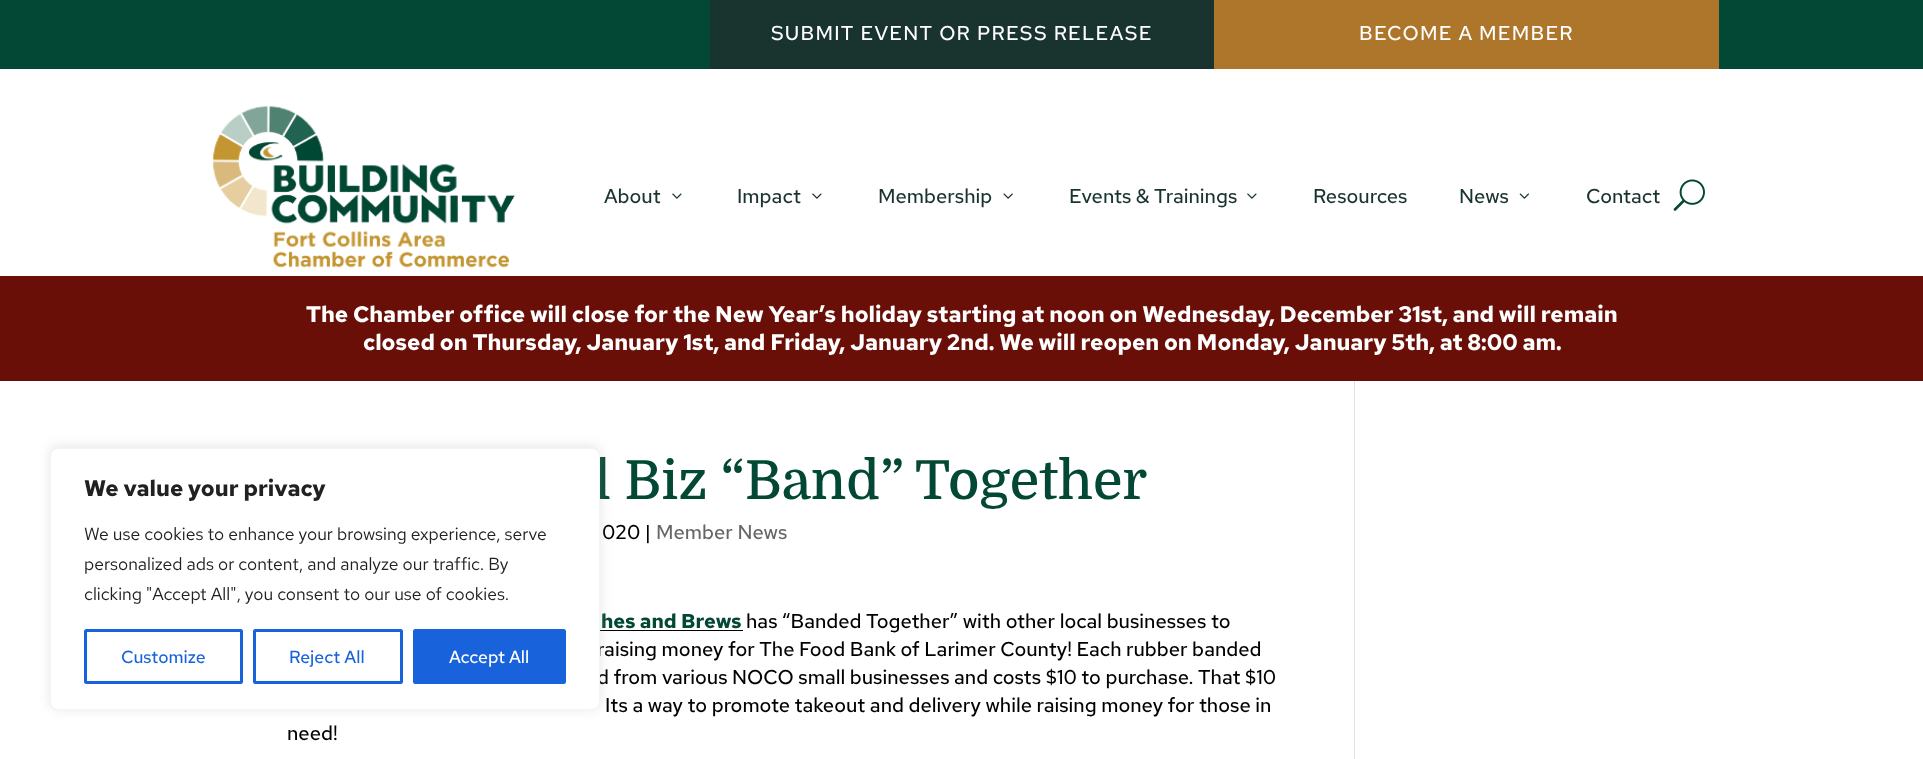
(async () => {
    const canvas = document.querySelector("canvas");
    canvas.width = 1923;
    canvas.height = 759;
    const context = canvas.getContext("2d");
    context.miterLimit = 4;
    context.fontKerning = "normal";
    function write(s, x, y, font, color) {
        context.font = font;
        context.fillStyle = color;
        context.fillText(s, x, y);
    }
    function block(x, y, w, h, color) {
        context.fillStyle = color;
        context.fillRect(x, y, w, h);
    }
    async function photo(src, x, y, w, h) {
        const img = new Image();
        img.src = src;
        await img.decode();
        context.drawImage(img, x, y, w, h);
    }

    block(0, 0, 1923, 759, "rgb(255, 255, 255)");
    block(0, 0, 1923, 69, "rgb(3, 72, 53)");
    block(710, 0, 504, 69, "rgb(25, 51, 47)");
    context.letterSpacing = "1.25px";
    write("SUBMIT EVENT OR PRESS RELEASE", 771, 40, "500 20px Red Hat Text", "rgb(255, 255, 255)");
    block(1214, 0, 505, 69, "rgb(174, 118, 42)");
    write("BECOME A MEMBER", 1359, 40, "500 20px Red Hat Text", "rgb(255, 255, 255)");
    await photo("media/1.png", 212, 106, 303, 162);
    context.letterSpacing = "0px";
    write("About", 604, 203, "500 20px Red Hat Text", "rgb(25, 51, 47)");
    await photo("media/2.png", 672, 193, 10, 6);
    write("Impact", 737, 203, "500 20px Red Hat Text", "rgb(25, 51, 47)");
    await photo("media/2.png", 812, 193, 10, 6);
    write("Membership", 878, 203, "500 20px Red Hat Text", "rgb(25, 51, 47)");
    await photo("media/3.png", 1003, 193, 10, 6);
    write("Events & Trainings", 1069, 203, "500 20px Red Hat Text", "rgb(25, 51, 47)");
    await photo("media/2.png", 1247, 193, 10, 6);
    write("Resources", 1313, 203, "500 20px Red Hat Text", "rgb(25, 51, 47)");
    write("News", 1459, 203, "500 20px Red Hat Text", "rgb(25, 51, 47)");
    await photo("media/4.png", 1519, 193, 10, 6);
    write("Contact", 1586, 203, "500 20px Red Hat Text", "rgb(25, 51, 47)");
    await photo("media/5.png", 1673, 179, 32, 32);
    block(0, 276, 1923, 105, "rgb(105, 15, 8)");
    write("The Chamber office will close for the New Year’s holiday starting at noon on Wednesday, December 31st, and will remain", 306, 322, "bold 22.5px Red Hat Text", "rgb(255, 255, 255)");
    write("closed on Thursday, January 1st, and Friday, January 2nd. We will reopen on Monday, January 5th, at 8:00 am.", 363, 350, "bold 22.5px Red Hat Text", "rgb(255, 255, 255)");
    write("l Biz “Band” Together", 594, 499, "500 53.75px Domine", "rgb(3, 72, 53)");
    write("020 |", 602, 539, "500 20px Red Hat Text", "rgb(0, 0, 0)");
    write("Member News", 656, 539, "500 20px Red Hat Text", "rgb(102, 102, 102)");
    write("hes and Brews", 601, 628, "bold 20px Red Hat Text", "rgb(3, 72, 53)");
    block(600, 630, 143, 1, "rgb(0, 0, 0)");
    write("has “Banded Together” with other local businesses to", 746, 628, "500 20px Red Hat Text", "rgb(0, 0, 0)");
    write("raising money for The Food Bank of Larimer County! Each rubber banded", 597, 656, "500 20px Red Hat Text", "rgb(0, 0, 0)");
    write("d from various NOCO small businesses and costs $10 to purchase. That $10", 597, 684, "500 20px Red Hat Text", "rgb(0, 0, 0)");
    write("Its a way to promote takeout and delivery while raising money for those in", 605, 712, "500 20px Red Hat Text", "rgb(0, 0, 0)");
    write("need!", 287, 740, "500 20px Red Hat Text", "rgb(0, 0, 0)");
    block(1354, 381, 1, 378, "rgb(226, 226, 226)");
    context.fillStyle = "rgba(172, 171, 171, 0.3)";
    context.filter = "blur(6px)";
    context.beginPath();
    context.roundRect(50, 446, 550, 263, 8);
    context.fill();
    context.filter = "none";
    context.fillStyle = "rgb(255, 255, 255)";
    context.beginPath();
    context.roundRect(50.5, 448.5, 549, 261, 7.5);
    context.fill();
    context.strokeStyle = "rgb(244, 244, 244)";
    context.stroke();
    write("We value your privacy", 84, 496, "bold 22.5px Red Hat Text", "rgb(33, 33, 33)");
    write("We use cookies to enhance your browsing experience, serve", 84, 540, "17.5px Red Hat Text", "rgb(33, 33, 33)");
    write("personalized ads or content, and analyze our traffic. By", 84, 570, "17.5px Red Hat Text", "rgb(33, 33, 33)");
    write("clicking \"Accept All\", you consent to our use of cookies.", 84, 600, "17.5px Red Hat Text", "rgb(33, 33, 33)");
    context.beginPath();
    context.roundRect(85.5, 630.5, 156, 52, 1);
    context.strokeStyle = "rgb(24, 99, 220)";
    context.lineWidth = 3;
    context.stroke();
    write("Customize", 121, 663, "500 17.5px Red Hat Text", "rgb(24, 99, 220)");
    context.beginPath();
    context.roundRect(254.5, 630.5, 147, 52, 1);
    context.stroke();
    write("Reject All", 289, 663, "500 17.5px Red Hat Text", "rgb(24, 99, 220)");
    context.beginPath();
    context.roundRect(414.5, 630.5, 150, 52, 1);
    context.fill();
    context.stroke();
    write("Accept All", 449, 663, "500 17.5px Red Hat Text", "rgb(255, 255, 255)");
})();
